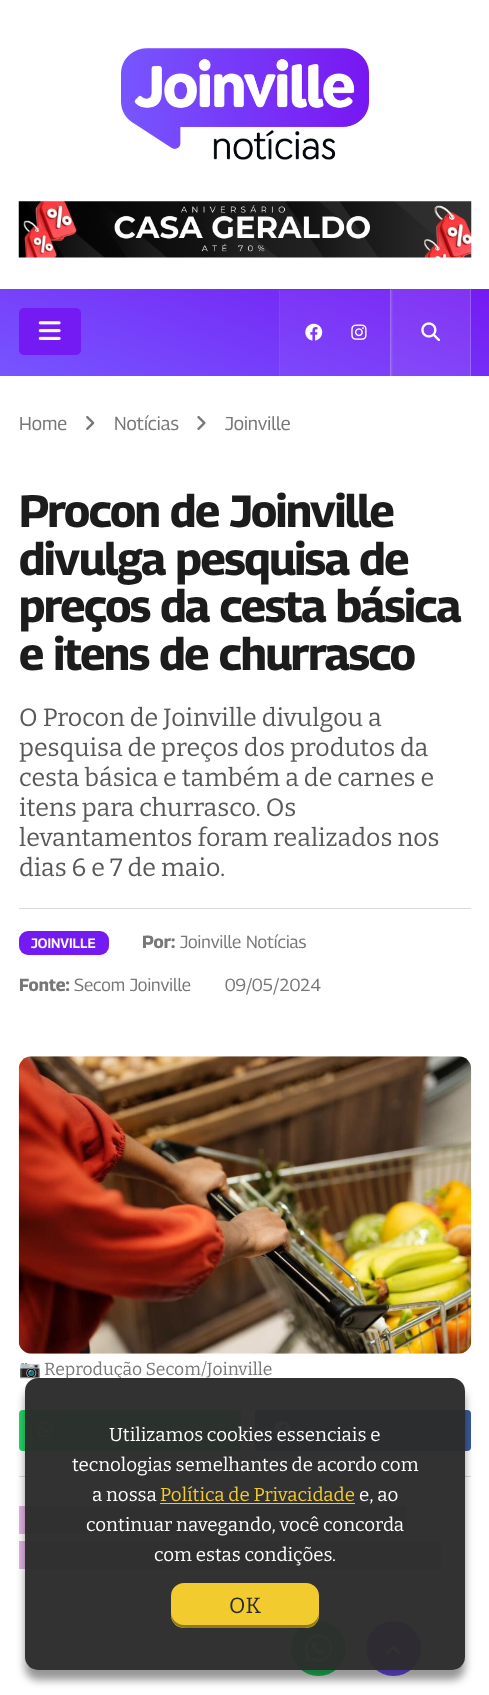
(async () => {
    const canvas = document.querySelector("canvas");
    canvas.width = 489;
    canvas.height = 1695;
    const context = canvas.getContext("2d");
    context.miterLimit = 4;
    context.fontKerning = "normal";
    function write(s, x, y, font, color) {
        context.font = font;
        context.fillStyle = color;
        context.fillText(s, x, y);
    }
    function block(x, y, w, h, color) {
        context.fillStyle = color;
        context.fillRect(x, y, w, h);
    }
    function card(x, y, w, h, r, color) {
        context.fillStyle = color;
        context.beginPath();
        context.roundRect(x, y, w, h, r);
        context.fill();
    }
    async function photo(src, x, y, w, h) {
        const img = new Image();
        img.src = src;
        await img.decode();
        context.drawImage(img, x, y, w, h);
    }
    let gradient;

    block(0, 0, 489, 1695, "rgb(255, 255, 255)");
    await photo("media/1.png", 121, 48, 248, 112);
    await photo("media/2.png", 18, 201, 454, 57);
    gradient = context.createLinearGradient(202, 450, 288, 215);
    gradient.addColorStop(0, "rgb(119, 85, 255)");
    gradient.addColorStop(1, "rgb(116, 26, 242)");
    context.fillStyle = gradient;
    context.fillRect(0, 289, 489, 87);
    gradient = context.createLinearGradient(202, 450, 288, 215);
    gradient.addColorStop(0, "rgb(133, 102, 255)");
    gradient.addColorStop(1, "rgb(130, 49, 243)");
    context.fillStyle = gradient;
    context.fillRect(391, 289, 79, 87);
    gradient = context.createLinearGradient(202, 450, 288, 215);
    gradient.addColorStop(0, "rgb(157, 133, 255)");
    gradient.addColorStop(1, "rgb(155, 90, 245)");
    context.fillStyle = gradient;
    context.fillRect(390, 289, 1, 1);
    context.fillRect(470, 289, 1, 87);
    gradient = context.createLinearGradient(202, 450, 288, 215);
    gradient.addColorStop(0, "rgb(126, 94, 255)");
    gradient.addColorStop(1, "rgb(123, 37, 243)");
    context.fillStyle = gradient;
    context.fillRect(280, 290, 110, 86);
    gradient = context.createLinearGradient(202, 450, 288, 215);
    gradient.addColorStop(0, "rgb(139, 110, 255)");
    gradient.addColorStop(1, "rgb(136, 59, 244)");
    context.fillStyle = gradient;
    context.fillRect(392, 290, 1, 86);
    gradient = context.createLinearGradient(202, 450, 288, 215);
    gradient.addColorStop(0, "rgb(162, 139, 255)");
    gradient.addColorStop(1, "rgb(160, 98, 246)");
    context.fillStyle = gradient;
    context.fillRect(390, 290, 1, 86);
    gradient = context.createLinearGradient(202, 450, 288, 215);
    gradient.addColorStop(0, "rgb(132, 102, 255)");
    gradient.addColorStop(1, "rgb(130, 48, 244)");
    context.fillStyle = gradient;
    context.fillRect(279, 290, 1, 86);
    gradient = context.createLinearGradient(202, 450, 288, 215);
    gradient.addColorStop(0, "rgb(144, 117, 255)");
    gradient.addColorStop(1, "rgb(143, 69, 245)");
    context.fillStyle = gradient;
    context.fillRect(391, 290, 1, 86);
    card(19, 308, 62, 47, 5, "rgb(116, 26, 242)");
    await photo("media/3.png", 38, 321, 23, 19);
    await photo("media/4.png", 305, 323, 18, 18);
    await photo("media/5.png", 351, 324, 16, 16);
    await photo("media/6.png", 421, 322, 19, 20);
    write("Home", 19, 430, "18.75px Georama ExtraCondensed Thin", "rgb(119, 119, 119)");
    await photo("media/7.png", 86, 416, 9, 14);
    write("Notícias", 114, 430, "18.75px Georama ExtraCondensed Thin", "rgb(119, 119, 119)");
    await photo("media/8.png", 197, 416, 9, 14);
    write("Joinville", 225, 430, "18.75px Georama ExtraCondensed Thin", "rgb(119, 119, 119)");
    context.letterSpacing = "-1.35px";
    write("Procon de Joinville", 19, 527, "bold 45px Georama ExtraCondensed Thin", "rgb(28, 28, 28)");
    write("divulga pesquisa de", 19, 575, "bold 45px Georama ExtraCondensed Thin", "rgb(28, 28, 28)");
    write("preços da cesta básica", 19, 622, "bold 45px Georama ExtraCondensed Thin", "rgb(28, 28, 28)");
    write("e itens de churrasco", 19, 670, "bold 45px Georama ExtraCondensed Thin", "rgb(28, 28, 28)");
    context.letterSpacing = "0px";
    write("O Procon de Joinville divulgou a", 19, 726, "25px Bitter", "rgb(88, 88, 88)");
    write("pesquisa de preços dos produtos da", 19, 756, "25px Bitter", "rgb(88, 88, 88)");
    write("cesta básica e também a de carnes e", 19, 786, "25px Bitter", "rgb(88, 88, 88)");
    write("itens para churrasco. Os", 19, 816, "25px Bitter", "rgb(88, 88, 88)");
    write("levantamentos foram realizados nos", 19, 846, "25px Bitter", "rgb(88, 88, 88)");
    write("dias 6 e 7 de maio.", 19, 876, "25px Bitter", "rgb(88, 88, 88)");
    block(19, 908, 452, 1, "rgb(217, 217, 217)");
    card(19, 931, 90, 24, 9, "rgb(116, 26, 242)");
    write("JOINVILLE", 31, 948, "600 13.75px Georama ExtraCondensed Thin", "rgb(255, 255, 255)");
    write("Por:", 142, 948, "bold 17.5px Georama ExtraCondensed Thin", "rgb(119, 119, 119)");
    write("Joinville Notícias", 180, 948, "17.5px Georama ExtraCondensed Thin", "rgb(119, 119, 119)");
    write("Fonte:", 19, 991, "bold 17.5px Georama ExtraCondensed Thin", "rgb(119, 119, 119)");
    write("Secom Joinville", 74, 991, "17.5px Georama ExtraCondensed Thin", "rgb(119, 119, 119)");
    write("09/05/2024", 225, 991, "17.5px Georama ExtraCondensed Thin", "rgb(119, 119, 119)");
    context.fillStyle = "rgb(37, 211, 102)";
    context.beginPath();
    context.arc(318.5, 1648.5, 27.5, 0, Math.PI * 2);
    context.fill();
    await photo("media/9.png", 305, 1634, 28, 28);
    await photo("media/10.png", 18, 1056, 454, 298);
    write("📷", 19, 1375, "17.5px Noto Color Emoji", "rgb(119, 119, 119)");
    write("Reprodução Secom/Joinville", 44, 1375, "17.5px Bitter", "rgb(119, 119, 119)");
    block(19, 1476, 452, 1, "rgb(217, 217, 217)");
    card(19, 1410, 222, 41, 4, "rgb(37, 211, 102)");
    await photo("media/11.png", 37, 1422, 16, 16);
    card(255, 1410, 216, 41, 4, "rgb(59, 89, 152)");
    await photo("media/12.png", 274, 1421, 17, 17);
    block(19, 1506, 387, 28, "rgb(227, 177, 225)");
    block(19, 1541, 422, 28, "rgb(227, 177, 225)");
    context.fillStyle = "rgb(119, 85, 255)";
    context.beginPath();
    context.arc(393.5, 1648.5, 27.5, 0, Math.PI * 2);
    context.fill();
    await photo("media/13.png", 386, 1645, 15, 9);
    context.save();
    context.beginPath();
    context.moveTo(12, 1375);
    context.lineTo(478, 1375);
    context.lineTo(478, 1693);
    context.lineTo(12, 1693);
    context.closePath();
    context.moveTo(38, 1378);
    context.lineTo(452, 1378);
    context.bezierCurveTo(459, 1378, 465, 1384, 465, 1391);
    context.lineTo(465, 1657);
    context.bezierCurveTo(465, 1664, 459, 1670, 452, 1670);
    context.lineTo(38, 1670);
    context.bezierCurveTo(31, 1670, 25, 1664, 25, 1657);
    context.lineTo(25, 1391);
    context.bezierCurveTo(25, 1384, 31, 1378, 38, 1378);
    context.closePath();
    context.clip("evenodd");
    context.fillStyle = "rgba(0, 0, 0, 0.41)";
    context.filter = "blur(4px)";
    context.beginPath();
    context.roundRect(25, 1388, 440, 292, 13);
    context.fill();
    context.filter = "none";
    context.restore();
    card(25, 1378, 440, 292, 13, "rgba(43, 43, 43, 0.97)");
    write("Utilizamos cookies essenciais e", 109, 1441, "18.75px Bitter", "rgb(255, 255, 255)");
    write("tecnologias semelhantes de acordo com", 72, 1471, "18.75px Bitter", "rgb(255, 255, 255)");
    write("a nossa", 92, 1501, "18.75px Bitter", "rgb(255, 255, 255)");
    write("Política de Privacidade", 160, 1501, "18.75px Bitter", "rgb(242, 203, 47)");
    block(160, 1503, 195, 1, "rgb(242, 203, 47)");
    write("e, ao", 359, 1501, "18.75px Bitter", "rgb(255, 255, 255)");
    write("continuar navegando, você concorda", 86, 1531, "18.75px Bitter", "rgb(255, 255, 255)");
    write("com estas condições.", 154, 1561, "18.75px Bitter", "rgb(255, 255, 255)");
    card(171, 1583, 148, 45, 13, "rgb(242, 203, 47)");
    context.fillStyle = "rgba(0, 0, 0, 0.4)";
    context.beginPath();
    context.moveTo(171, 1612);
    context.bezierCurveTo(171, 1632, 189, 1628, 204, 1628);
    context.lineTo(286, 1628);
    context.bezierCurveTo(301, 1628, 319, 1632, 319, 1612);
    context.bezierCurveTo(319, 1619, 313, 1625, 306, 1625);
    context.lineTo(184, 1625);
    context.bezierCurveTo(177, 1625, 171, 1619, 171, 1612);
    context.closePath();
    context.fill();
    write("OK", 229, 1613, "22px Bitter", "rgb(43, 43, 43)");
})();
